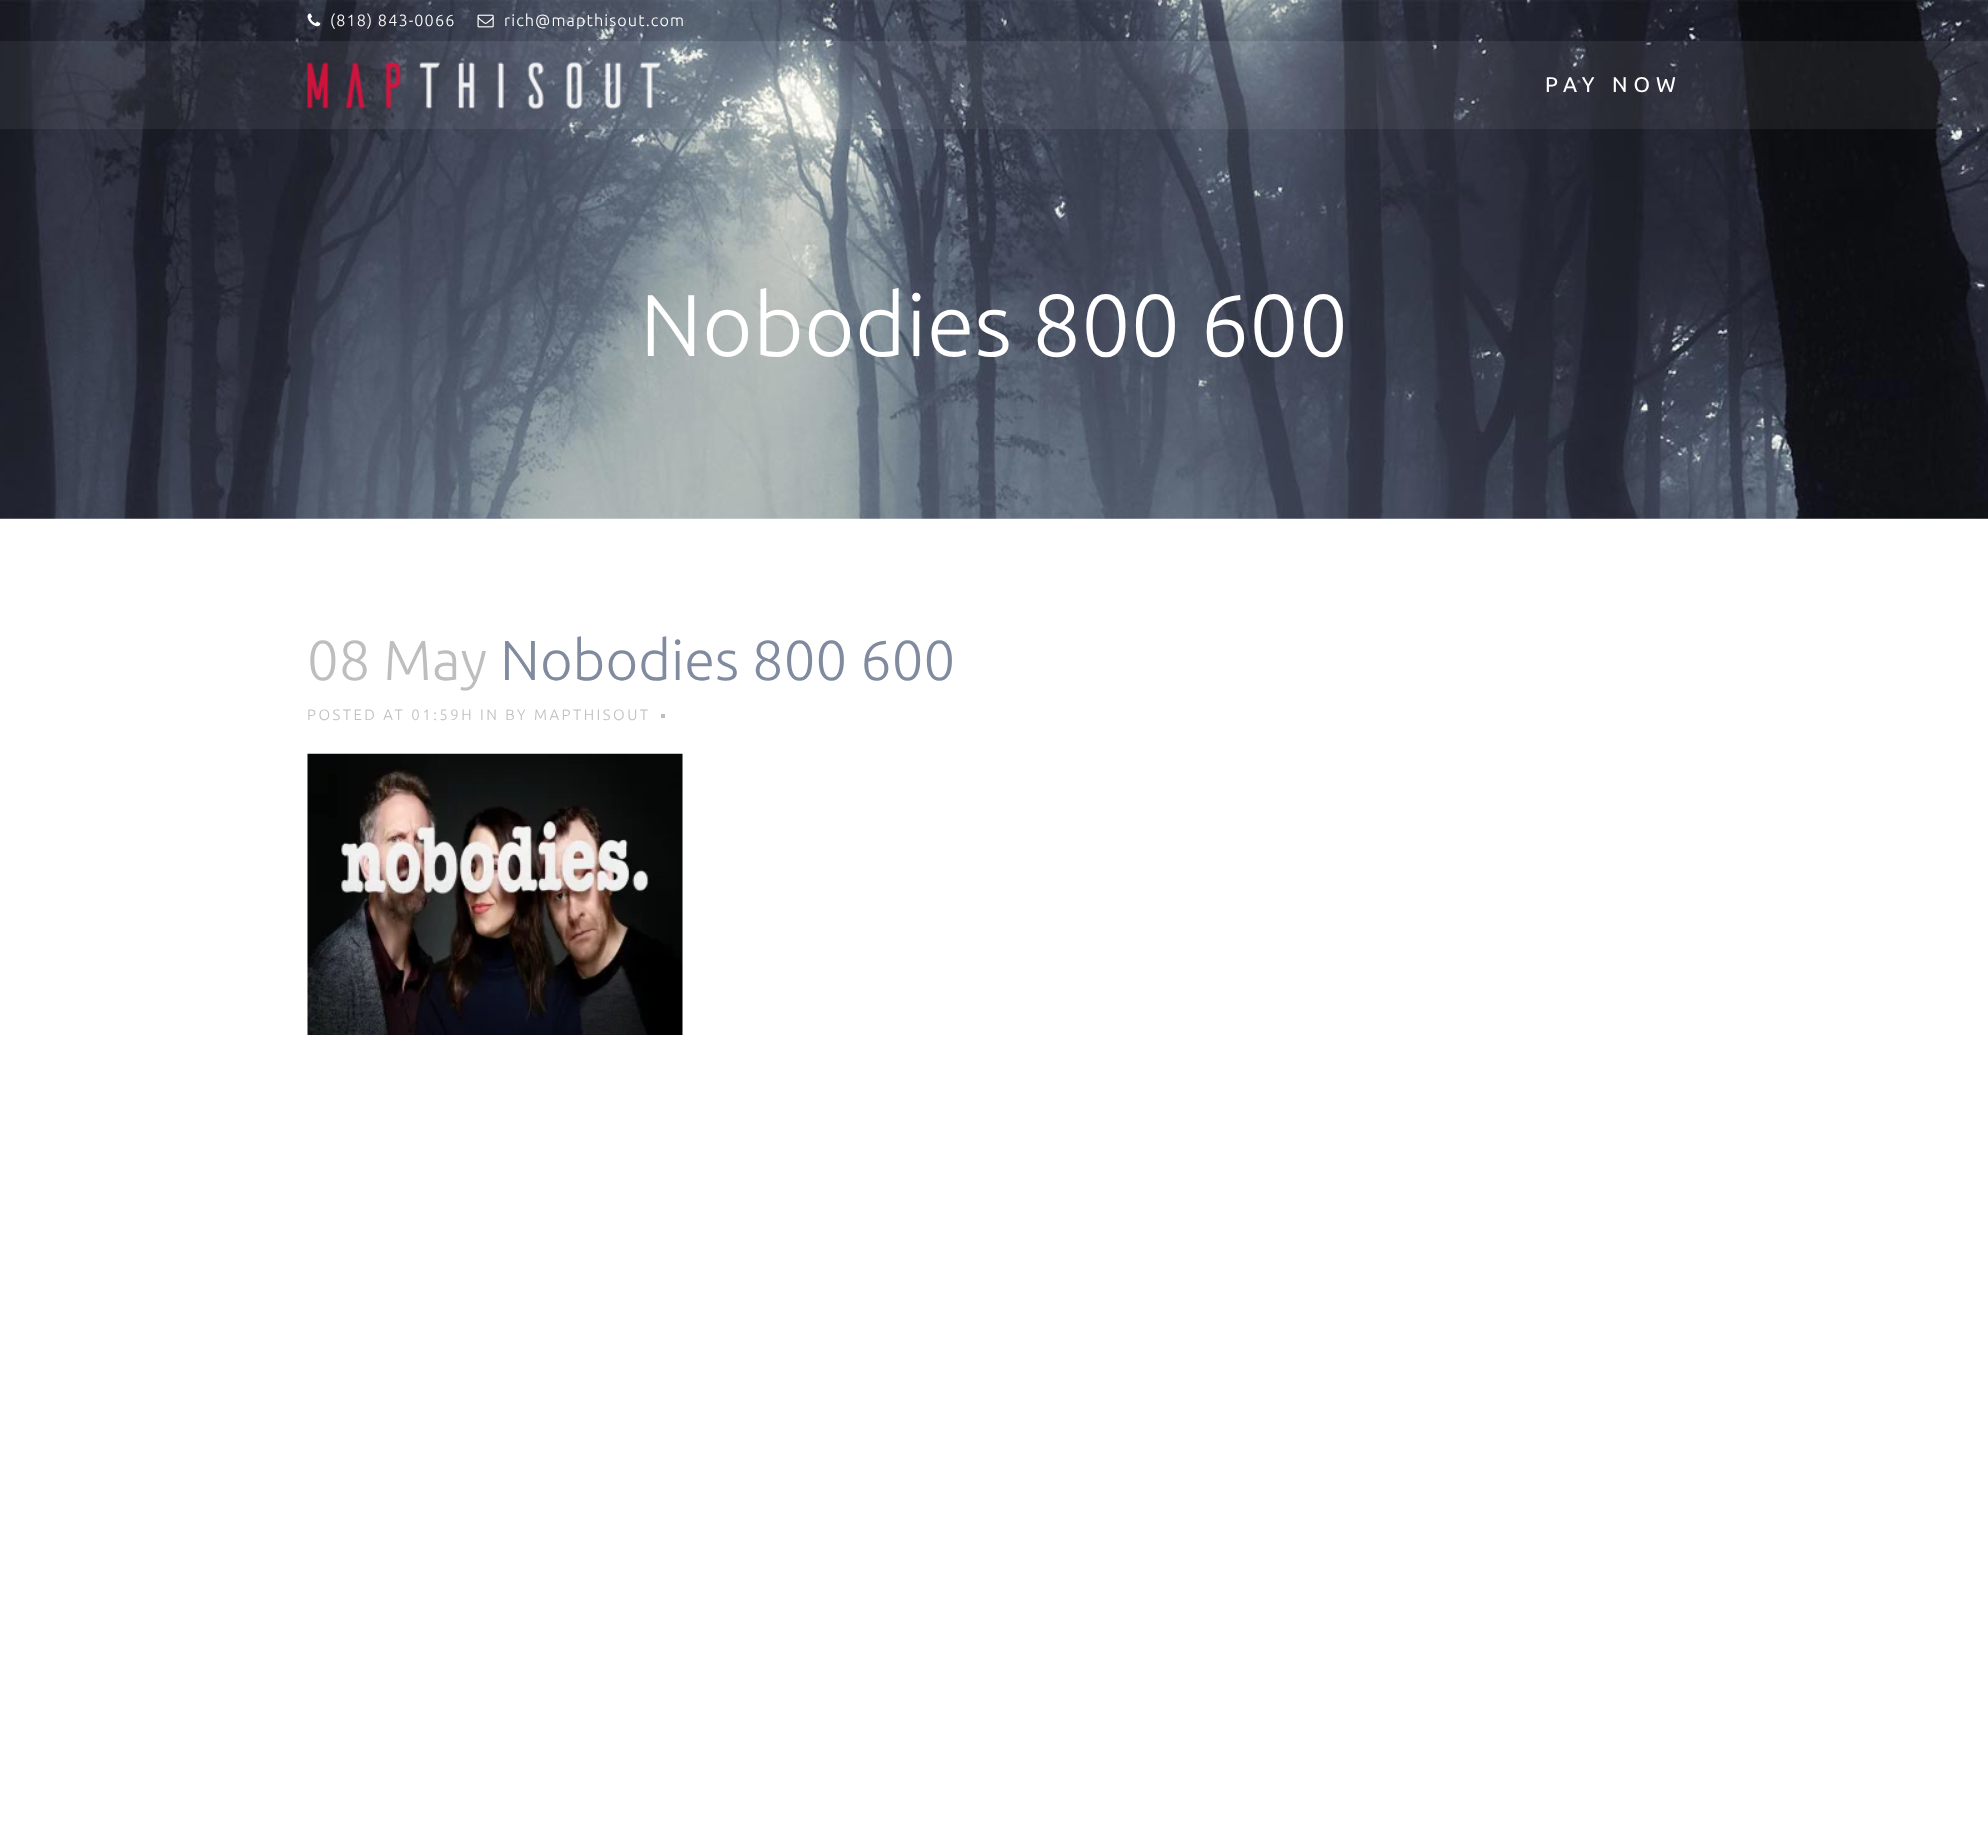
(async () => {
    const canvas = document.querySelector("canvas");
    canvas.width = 1988;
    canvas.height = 1844;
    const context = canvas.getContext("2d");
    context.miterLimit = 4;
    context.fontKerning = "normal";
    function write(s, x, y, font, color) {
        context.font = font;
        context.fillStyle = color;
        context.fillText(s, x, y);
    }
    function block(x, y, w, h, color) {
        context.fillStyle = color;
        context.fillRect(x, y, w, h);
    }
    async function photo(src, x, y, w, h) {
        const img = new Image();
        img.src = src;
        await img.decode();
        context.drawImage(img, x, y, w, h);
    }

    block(0, 0, 1988, 1844, "rgb(255, 255, 255)");
    await photo("media/4.png", 0, 0, 1988, 519);
    block(29, 0, 1959, 41, "rgba(0, 0, 0, 0.06)");
    await photo("media/1.png", 307, 13, 14, 14);
    context.letterSpacing = "1.1px";
    write("(818) 843-0066", 330, 26, "300 16.25px Ubuntu", "rgb(255, 255, 255)");
    await photo("media/2.png", 477, 14, 17, 14);
    write("rich@mapthisout.com", 504, 26, "300 16.25px Ubuntu", "rgb(255, 255, 255)");
    block(0, 41, 1988, 88, "rgba(255, 255, 255, 0.06)");
    await photo("media/3.png", 307, 62, 355, 47);
    context.letterSpacing = "6.25px";
    write("PAY NOW", 1545, 92, "21.25px Ubuntu", "rgb(255, 255, 255)");
    context.letterSpacing = "0px";
    write("Nobodies 800 600", 640, 356, "300 87.5px Ubuntu", "rgb(255, 255, 255)");
    write("08 May", 307, 680, "300 56.25px Ubuntu", "rgb(190, 190, 190)");
    write("Nobodies 800 600", 500, 680, "300 56.25px Ubuntu", "rgb(128, 139, 160)");
    context.letterSpacing = "2.5px";
    write("POSTED AT 01:59H IN BY MAPTHISOUT", 307, 720, "300 15px Ubuntu", "rgb(190, 190, 190)");
    block(661, 714, 4, 4, "rgb(190, 190, 190)");
    await photo("media/5.png", 307, 753, 376, 282);
})();
